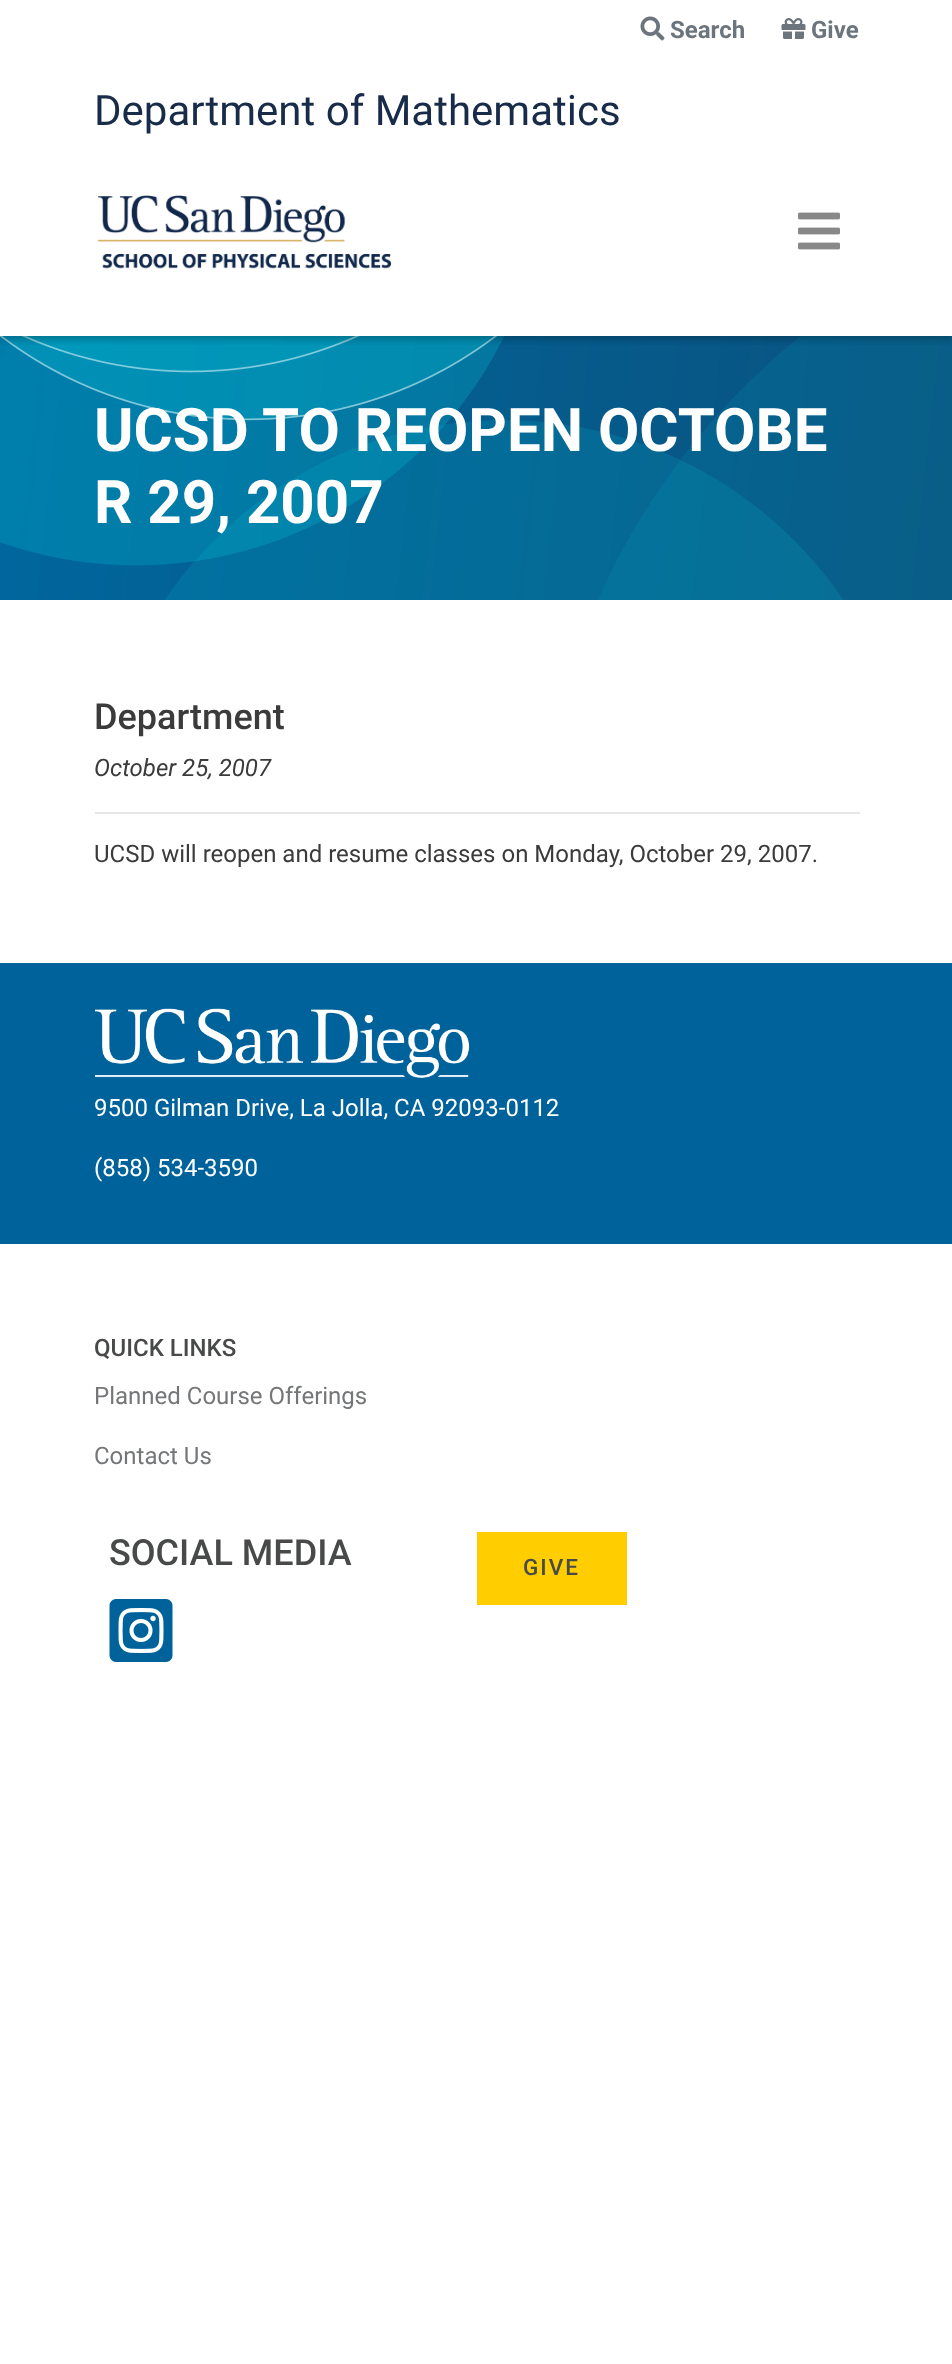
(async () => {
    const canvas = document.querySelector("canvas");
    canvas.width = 952;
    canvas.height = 2364;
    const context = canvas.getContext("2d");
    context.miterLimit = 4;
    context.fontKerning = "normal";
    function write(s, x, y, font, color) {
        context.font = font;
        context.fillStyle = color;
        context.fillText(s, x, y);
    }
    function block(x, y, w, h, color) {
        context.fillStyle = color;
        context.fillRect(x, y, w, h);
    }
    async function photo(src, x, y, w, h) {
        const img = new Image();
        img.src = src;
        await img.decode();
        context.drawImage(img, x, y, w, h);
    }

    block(0, 0, 952, 2364, "rgb(255, 255, 255)");
    await photo("media/5.png", 0, 336, 952, 264);
    context.save();
    context.beginPath();
    context.rect(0, 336, 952, 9);
    context.clip();
    context.fillStyle = "rgba(0, 0, 0, 0.25)";
    context.filter = "blur(4px)";
    context.beginPath();
    context.rect(0, 3, 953, 336);
    context.fill();
    context.filter = "none";
    context.restore();
    await photo("media/1.png", 640, 16, 25, 25);
    write("Search", 670, 38, "bold 24px Roboto", "rgb(108, 117, 125)");
    await photo("media/2.png", 781, 18, 25, 21);
    write("Give", 811, 38, "bold 24px Roboto", "rgb(108, 117, 125)");
    write("Department of Mathematics", 94, 125, "42px Roboto", "rgb(24, 43, 73)");
    await photo("media/3.png", 97, 195, 295, 74);
    await photo("media/4.png", 798, 212, 42, 38);
    write("UCSD TO REOPEN OCTOBE", 94, 451, "bold 60px Roboto", "rgb(255, 255, 255)");
    write("R 29, 2007", 94, 523, "bold 60px Roboto", "rgb(255, 255, 255)");
    write("Department", 94, 729, "500 36px Roboto", "rgb(59, 59, 59)");
    write("October 25, 2007", 94, 776, "italic 24px Roboto", "rgb(59, 59, 59)");
    block(95, 812, 765, 2, "rgb(230, 230, 230)");
    write("UCSD will reopen and resume classes on Monday, October 29, 2007.", 94, 862, "24px Roboto", "rgb(59, 59, 59)");
    block(0, 963, 952, 281, "rgb(0, 98, 155)");
    await photo("media/6.png", 95, 1008, 375, 70);
    write("9500 Gilman Drive, La Jolla, CA 92093-0112", 94, 1116, "24px Roboto", "rgb(255, 255, 255)");
    write("(858) 534-3590", 94, 1176, "24px Roboto", "rgb(255, 255, 255)");
    write("QUICK LINKS", 94, 1356, "500 24px Roboto", "rgb(72, 73, 73)");
    write("Planned Course Offerings", 94, 1404, "24px Roboto", "rgb(116, 118, 120)");
    write("Contact Us", 94, 1464, "24px Roboto", "rgb(116, 118, 120)");
    write("SOCIAL MEDIA", 109, 1565, "500 36px Roboto", "rgb(72, 73, 73)");
    await photo("media/7.png", 109, 1599, 64, 63);
    block(477, 1532, 150, 73, "rgb(255, 205, 0)");
    context.letterSpacing = "2px";
    write("GIVE", 523, 1575, "500 22.5px Roboto", "rgb(72, 73, 73)");
})();
